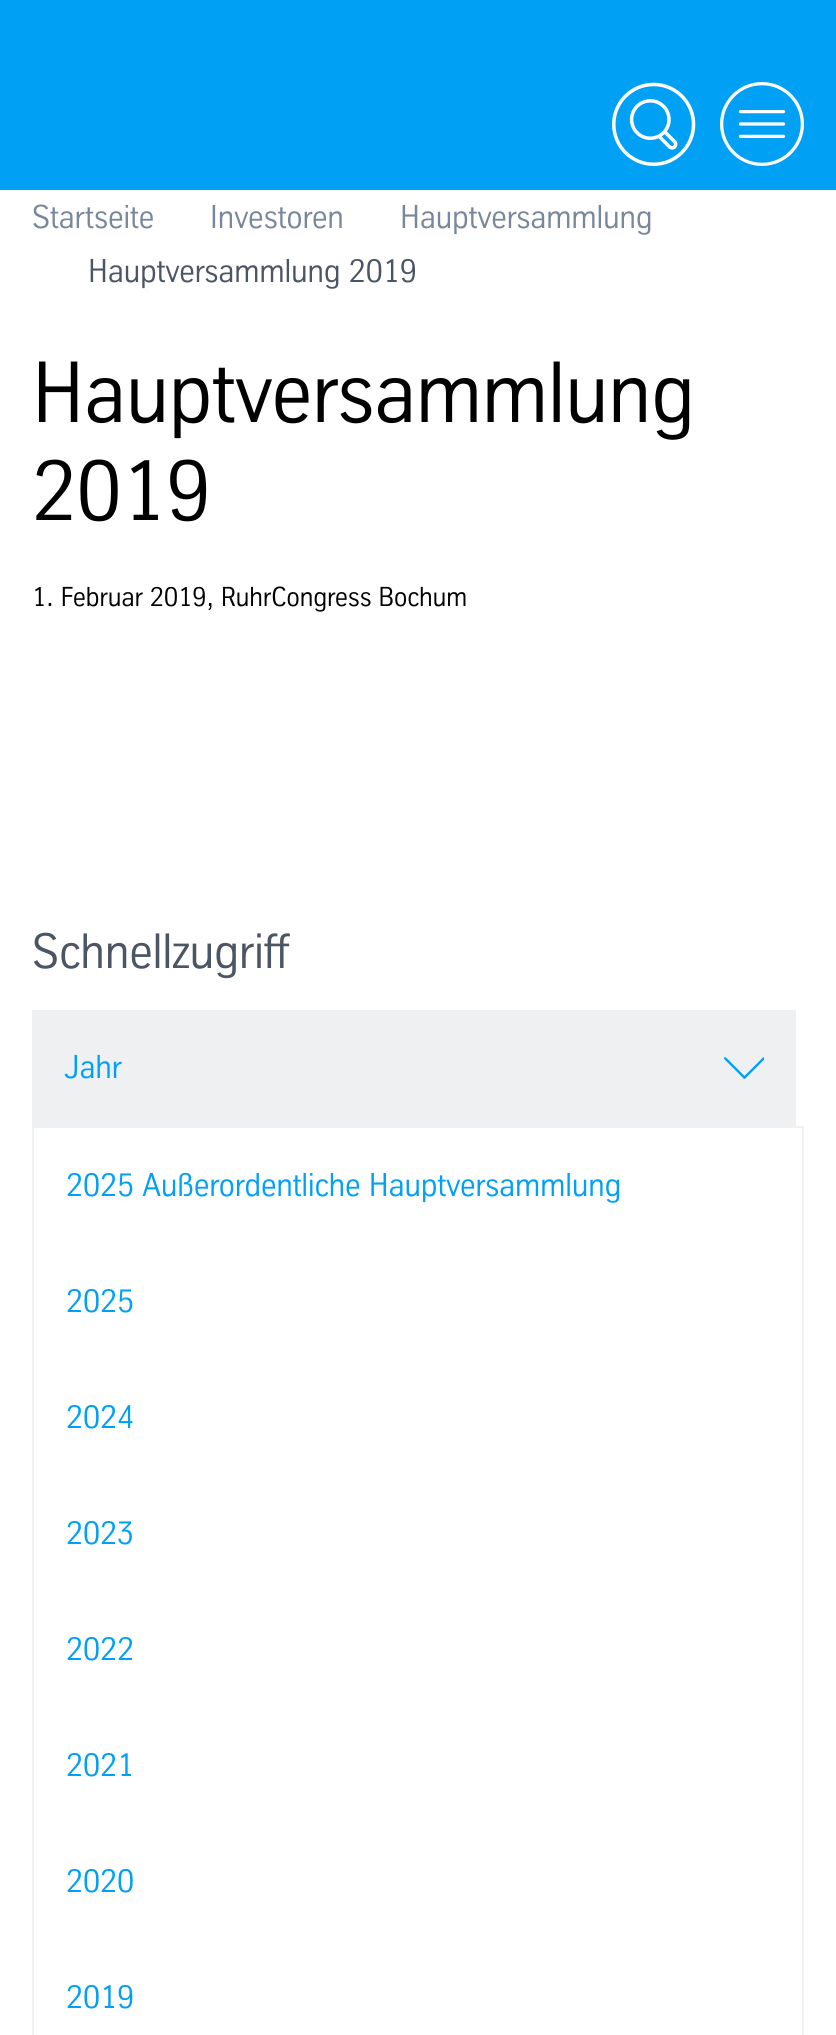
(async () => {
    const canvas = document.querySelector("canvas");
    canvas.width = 836;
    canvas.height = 2035;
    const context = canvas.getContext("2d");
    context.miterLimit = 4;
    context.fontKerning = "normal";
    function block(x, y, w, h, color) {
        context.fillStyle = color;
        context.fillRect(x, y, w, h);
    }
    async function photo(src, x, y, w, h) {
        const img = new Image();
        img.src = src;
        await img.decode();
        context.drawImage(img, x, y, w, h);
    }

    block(0, 0, 836, 2035, "rgb(255, 255, 255)");
    block(0, 0, 836, 190, "rgb(0, 160, 245)");
    await photo("media/1.png", 612, 82, 84, 84);
    await photo("media/2.png", 720, 82, 84, 84);
    await photo("media/3.png", 33, 204, 120, 25);
    await photo("media/4.png", 212, 204, 130, 25);
    await photo("media/5.png", 402, 204, 249, 31);
    await photo("media/6.png", 90, 258, 325, 31);
    await photo("media/7.png", 38, 361, 652, 79);
    await photo("media/8.png", 36, 459, 171, 63);
    await photo("media/9.png", 35, 586, 431, 26);
    await photo("media/10.png", 34, 932, 256, 47);
    block(32, 1010, 764, 116, "rgb(238, 240, 242)");
    await photo("media/11.png", 64, 1054, 58, 25);
    await photo("media/12.png", 724, 1057, 40, 22);
    context.strokeStyle = "rgb(238, 240, 242)";
    context.lineWidth = 2;
    context.strokeRect(33, 1127, 770, 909);
    await photo("media/13.png", 67, 1172, 553, 31);
    await photo("media/14.png", 67, 1288, 66, 25);
    await photo("media/15.png", 67, 1404, 66, 25);
    await photo("media/16.png", 67, 1520, 65, 25);
    await photo("media/17.png", 67, 1636, 65, 25);
    await photo("media/18.png", 67, 1752, 64, 25);
    await photo("media/19.png", 67, 1868, 66, 25);
    await photo("media/20.png", 67, 1984, 66, 25);
})();
